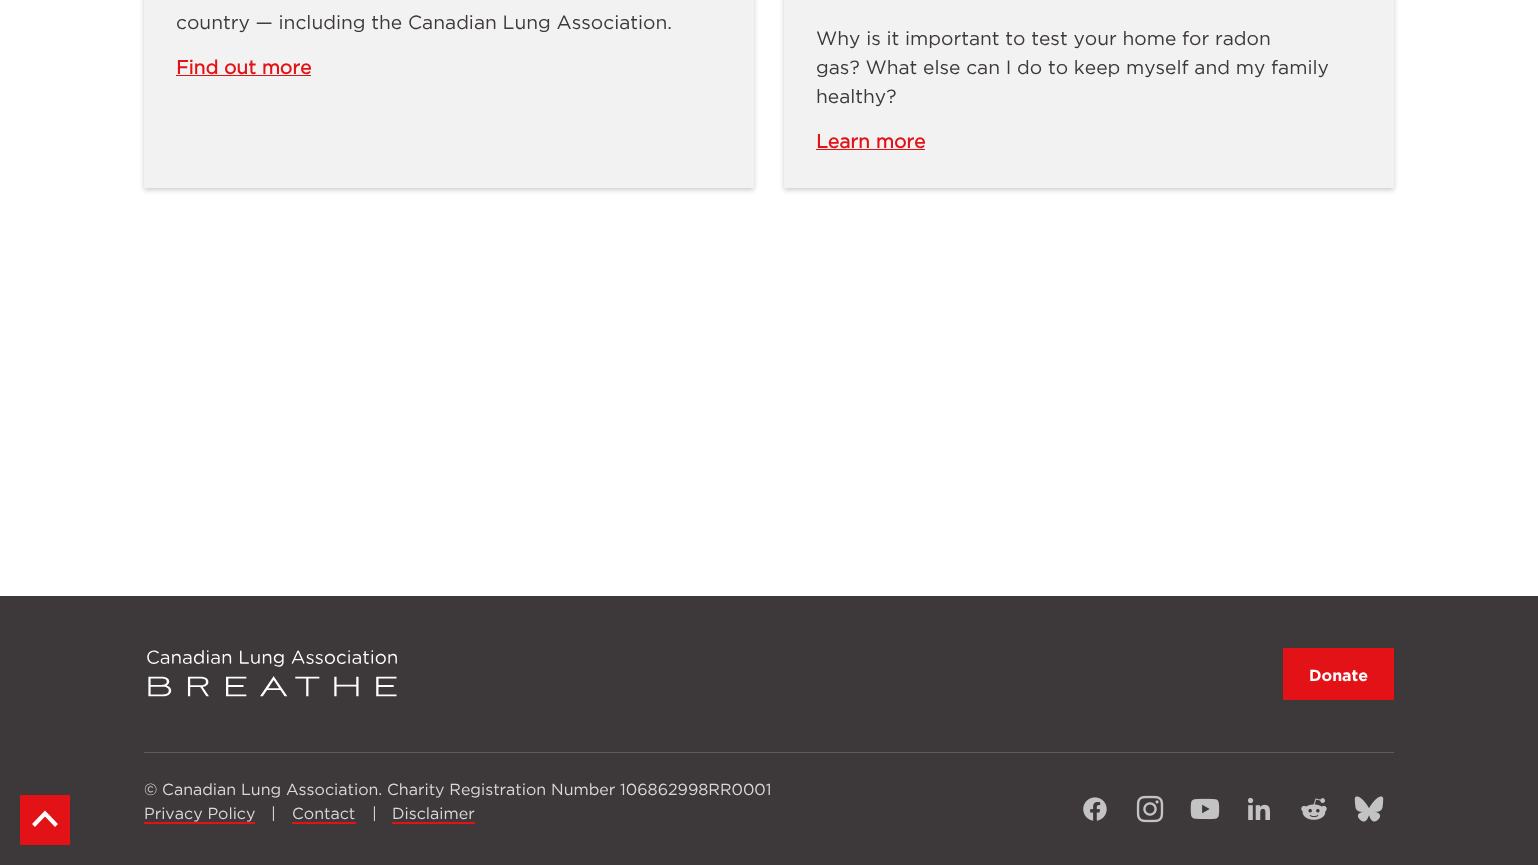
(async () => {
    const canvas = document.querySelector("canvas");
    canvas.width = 1538;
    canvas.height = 865;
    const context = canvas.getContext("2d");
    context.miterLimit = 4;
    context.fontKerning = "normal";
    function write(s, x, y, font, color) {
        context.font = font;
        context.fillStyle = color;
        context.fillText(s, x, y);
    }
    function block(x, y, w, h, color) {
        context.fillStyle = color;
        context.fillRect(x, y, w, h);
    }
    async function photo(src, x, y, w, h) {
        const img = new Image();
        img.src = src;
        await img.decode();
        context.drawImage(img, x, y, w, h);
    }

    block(0, 0, 1538, 865, "rgb(255, 255, 255)");
    context.fillStyle = "rgba(0, 0, 0, 0.2)";
    context.filter = "blur(2.5px)";
    context.beginPath();
    context.rect(144, -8, 610, 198);
    context.fill();
    context.filter = "none";
    block(144, 0, 610, 188, "rgb(242, 242, 242)");
    write("country — including the Canadian Lung Association.", 176, 29, "19.2px Gotham", "rgb(61, 56, 57)");
    write("Find out more", 176, 74, "bold 19.2px 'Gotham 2'", "rgb(226, 18, 22)");
    block(176, 75, 135, 1, "rgb(226, 18, 22)");
    context.fillStyle = "rgba(0, 0, 0, 0.2)";
    context.filter = "blur(2.5px)";
    context.beginPath();
    context.rect(784, -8, 610, 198);
    context.fill();
    context.filter = "none";
    block(784, 0, 610, 188, "rgb(242, 242, 242)");
    write("Why is it important to test your home for radon", 816, 45, "19.2px Gotham", "rgb(61, 56, 57)");
    write("gas? What else can I do to keep myself and my family", 816, 74, "19.2px Gotham", "rgb(61, 56, 57)");
    write("healthy?", 816, 103, "19.2px Gotham", "rgb(61, 56, 57)");
    write("Learn more", 816, 148, "bold 19.2px 'Gotham 2'", "rgb(226, 18, 22)");
    block(816, 149, 109, 1, "rgb(226, 18, 22)");
    block(0, 596, 1538, 269, "rgb(61, 56, 57)");
    block(20, 795, 50, 50, "rgb(226, 18, 22)");
    context.beginPath();
    context.moveTo(56.5, 825.5);
    context.lineTo(45, 813.5);
    context.lineTo(33.5, 825.5);
    context.strokeStyle = "rgb(255, 255, 255)";
    context.lineWidth = 4;
    context.stroke();
    await photo("media/1.png", 147, 650, 250, 47);
    block(1283, 648, 111, 52, "rgb(226, 18, 22)");
    write("Donate", 1309, 681, "bold 16px Gotham", "rgb(255, 255, 255)");
    block(144, 752, 1250, 1, "rgb(95, 91, 92)");
    write("© Canadian Lung Association. Charity Registration Number 106862998RR0001", 144, 795, "16px Gotham", "rgb(217, 217, 217)");
    write("Privacy Policy", 144, 819, "16px Gotham", "rgb(217, 217, 217)");
    block(144, 822, 111, 2, "rgb(226, 18, 22)");
    write("|", 271, 819, "16px Gotham", "rgb(217, 217, 217)");
    write("Contact", 292, 819, "16px Gotham", "rgb(217, 217, 217)");
    block(292, 822, 64, 2, "rgb(226, 18, 22)");
    write("|", 372, 819, "16px Gotham", "rgb(217, 217, 217)");
    write("Disclaimer", 392, 819, "16px Gotham", "rgb(217, 217, 217)");
    block(392, 822, 83, 2, "rgb(226, 18, 22)");
    await photo("media/2.png", 1083, 797, 24, 24);
    await photo("media/3.png", 1136, 795, 28, 28);
    await photo("media/4.png", 1190, 798, 30, 22);
    await photo("media/5.png", 1247, 797, 23, 23);
    await photo("media/6.png", 1301, 798, 26, 22);
    await photo("media/7.png", 1354, 796, 30, 26);
})();
